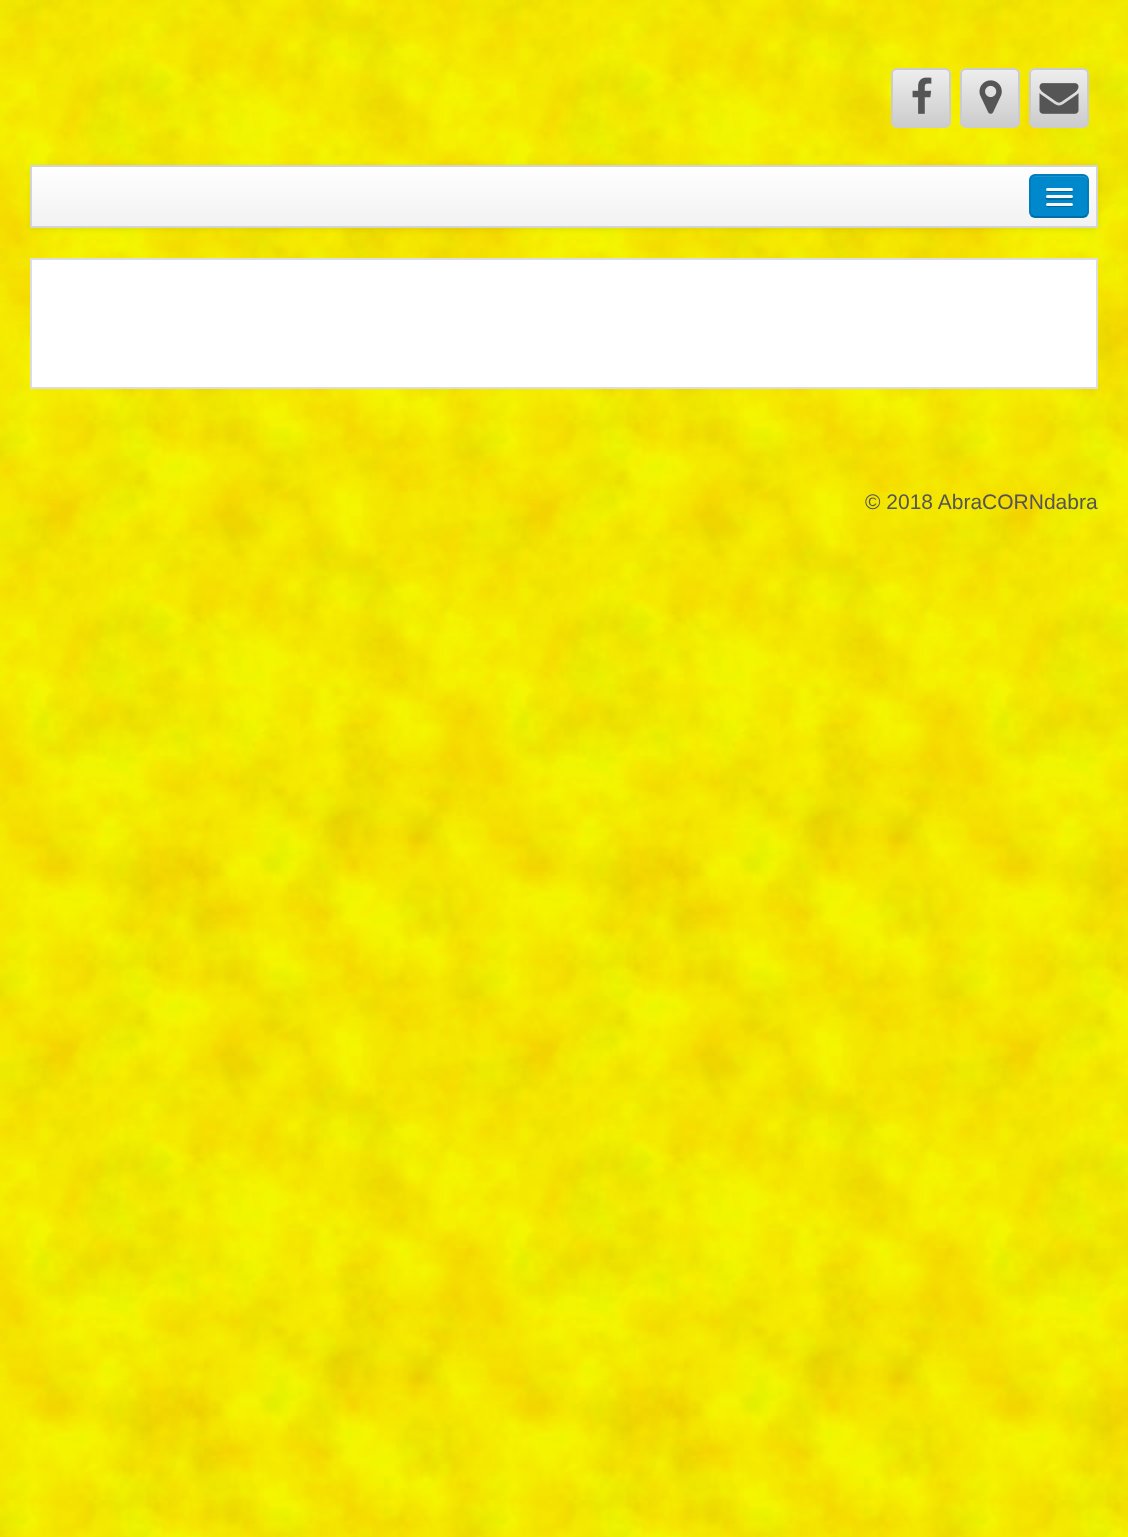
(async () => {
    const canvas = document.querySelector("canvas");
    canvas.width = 1128;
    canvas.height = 1537;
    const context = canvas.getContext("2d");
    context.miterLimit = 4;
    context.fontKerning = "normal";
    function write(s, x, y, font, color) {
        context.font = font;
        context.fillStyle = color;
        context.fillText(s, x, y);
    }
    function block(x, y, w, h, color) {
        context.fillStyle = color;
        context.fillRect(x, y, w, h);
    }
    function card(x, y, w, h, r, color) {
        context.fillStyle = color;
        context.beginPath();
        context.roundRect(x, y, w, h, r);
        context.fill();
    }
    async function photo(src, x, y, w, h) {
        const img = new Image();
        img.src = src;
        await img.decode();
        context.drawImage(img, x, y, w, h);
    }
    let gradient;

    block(0, 0, 1128, 1537, "rgb(255, 255, 255)");
    await photo("media/1.png", 0, 0, 1128, 1537);
    context.save();
    context.beginPath();
    context.roundRect(891, 68, 60, 60, 6);
    context.clip();
    gradient = context.createLinearGradient(921, 69, 921, 126);
    gradient.addColorStop(0, "rgb(238, 238, 238)");
    gradient.addColorStop(1, "rgb(204, 204, 204)");
    context.fillStyle = gradient;
    context.fillRect(891, 69, 60, 57);
    context.restore();
    context.beginPath();
    context.roundRect(892, 69, 58, 58, 5);
    context.strokeStyle = "rgb(204, 204, 204)";
    context.lineWidth = 2;
    context.stroke();
    await photo("media/2.png", 912, 77, 20, 37);
    context.save();
    context.beginPath();
    context.roundRect(960, 68, 60, 60, 6);
    context.clip();
    gradient = context.createLinearGradient(990, 69, 990, 126);
    gradient.addColorStop(0, "rgb(238, 238, 238)");
    gradient.addColorStop(1, "rgb(204, 204, 204)");
    context.fillStyle = gradient;
    context.fillRect(960, 69, 60, 57);
    context.restore();
    context.beginPath();
    context.roundRect(961, 69, 58, 58, 5);
    context.stroke();
    await photo("media/3.png", 979, 80, 23, 34);
    context.save();
    context.beginPath();
    context.roundRect(1029, 68, 60, 60, 6);
    context.clip();
    gradient = context.createLinearGradient(1059, 69, 1059, 126);
    gradient.addColorStop(0, "rgb(238, 238, 238)");
    gradient.addColorStop(1, "rgb(204, 204, 204)");
    context.fillStyle = gradient;
    context.fillRect(1029, 69, 60, 57);
    context.restore();
    context.beginPath();
    context.roundRect(1030, 69, 58, 58, 5);
    context.stroke();
    await photo("media/4.png", 1039, 83, 40, 31);
    context.fillStyle = "rgba(0, 0, 0, 0.07)";
    context.filter = "blur(3px)";
    context.beginPath();
    context.roundRect(30, 167, 1068, 63, 1.5);
    context.fill();
    context.filter = "none";
    gradient = context.createLinearGradient(564, 166, 564, 227);
    gradient.addColorStop(0, "rgb(255, 255, 255)");
    gradient.addColorStop(1, "rgb(242, 242, 242)");
    context.fillStyle = gradient;
    context.fillRect(30, 167, 1068, 60);
    context.beginPath();
    context.roundRect(31, 166, 1066, 61, 0.5);
    context.strokeStyle = "rgb(212, 212, 212)";
    context.stroke();
    card(1029, 174, 60, 44, 6, "rgb(0, 136, 204)");
    context.fillStyle = "rgb(26, 148, 209)";
    context.beginPath();
    context.moveTo(1035, 177);
    context.lineTo(1083, 177);
    context.bezierCurveTo(1085, 177, 1088, 179, 1088, 182);
    context.lineTo(1088, 181);
    context.bezierCurveTo(1088, 178, 1086, 176, 1083, 176);
    context.lineTo(1036, 176);
    context.bezierCurveTo(1034, 176, 1033, 177, 1032, 178);
    context.closePath();
    context.fill();
    context.beginPath();
    context.moveTo(1086.5, 215);
    context.bezierCurveTo(1085.5, 216, 1084.5, 217, 1083, 217);
    context.lineTo(1035, 217);
    context.bezierCurveTo(1033.5, 217, 1032.5, 216, 1031.5, 215);
    context.strokeStyle = "rgba(0, 0, 0, 0.25)";
    context.lineWidth = 1.5;
    context.stroke();
    context.beginPath();
    context.moveTo(1031.5, 215);
    context.bezierCurveTo(1030.5, 214, 1030, 213, 1030, 211.5);
    context.lineTo(1030, 180);
    context.bezierCurveTo(1030, 178.5, 1030.5, 177.5, 1031.5, 176.5);
    context.bezierCurveTo(1032.5, 175.5, 1033.5, 175, 1035, 175);
    context.lineTo(1083, 175);
    context.bezierCurveTo(1084.5, 175, 1085.5, 175.5, 1086.5, 176.5);
    context.bezierCurveTo(1087.5, 177.5, 1088, 178.5, 1088, 180);
    context.lineTo(1088, 211.5);
    context.bezierCurveTo(1088, 213, 1087.5, 214, 1086.5, 215);
    context.strokeStyle = "rgba(0, 0, 0, 0.1)";
    context.stroke();
    context.fillStyle = "rgb(0, 102, 153)";
    context.beginPath();
    context.moveTo(1046, 190);
    context.bezierCurveTo(1045.5, 193, 1051, 192, 1051.5, 192);
    context.lineTo(1071.5, 192);
    context.bezierCurveTo(1073, 192, 1073.5, 190, 1072.5, 189.5);
    context.lineTo(1071.5, 190.5);
    context.bezierCurveTo(1070, 191, 1046.5, 190.5, 1046, 190);
    context.closePath();
    context.fill();
    card(1046, 188, 27, 3, 1.5, "rgb(245, 245, 245)");
    context.fillStyle = "rgb(0, 102, 153)";
    context.beginPath();
    context.moveTo(1046, 198);
    context.bezierCurveTo(1044.5, 201, 1051.5, 200, 1051.5, 200);
    context.lineTo(1072, 200);
    context.bezierCurveTo(1073, 199.5, 1073.5, 198, 1072.5, 197);
    context.lineTo(1071, 198);
    context.bezierCurveTo(1069, 198.5, 1047, 198.5, 1046, 198);
    context.closePath();
    context.fill();
    card(1046, 195, 27, 3, 1.5, "rgb(245, 245, 245)");
    context.fillStyle = "rgb(0, 102, 153)";
    context.beginPath();
    context.moveTo(1046, 205);
    context.bezierCurveTo(1045.5, 208, 1051, 207, 1051.5, 207);
    context.lineTo(1071.5, 207);
    context.bezierCurveTo(1073, 207, 1073.5, 205, 1072.5, 204.5);
    context.lineTo(1071.5, 205.5);
    context.bezierCurveTo(1070, 206, 1046.5, 205.5, 1046, 205);
    context.closePath();
    context.fill();
    card(1046, 203, 27, 3, 1.5, "rgb(245, 245, 245)");
    context.fillStyle = "rgb(255, 255, 255)";
    context.beginPath();
    context.rect(31, 259, 1066, 129);
    context.fill();
    context.strokeStyle = "rgb(221, 221, 221)";
    context.lineWidth = 2;
    context.stroke();
    write("© 2018 AbraCORNdabra", 865, 509, "21px Liberation Sans", "rgb(85, 85, 85)");
})();
